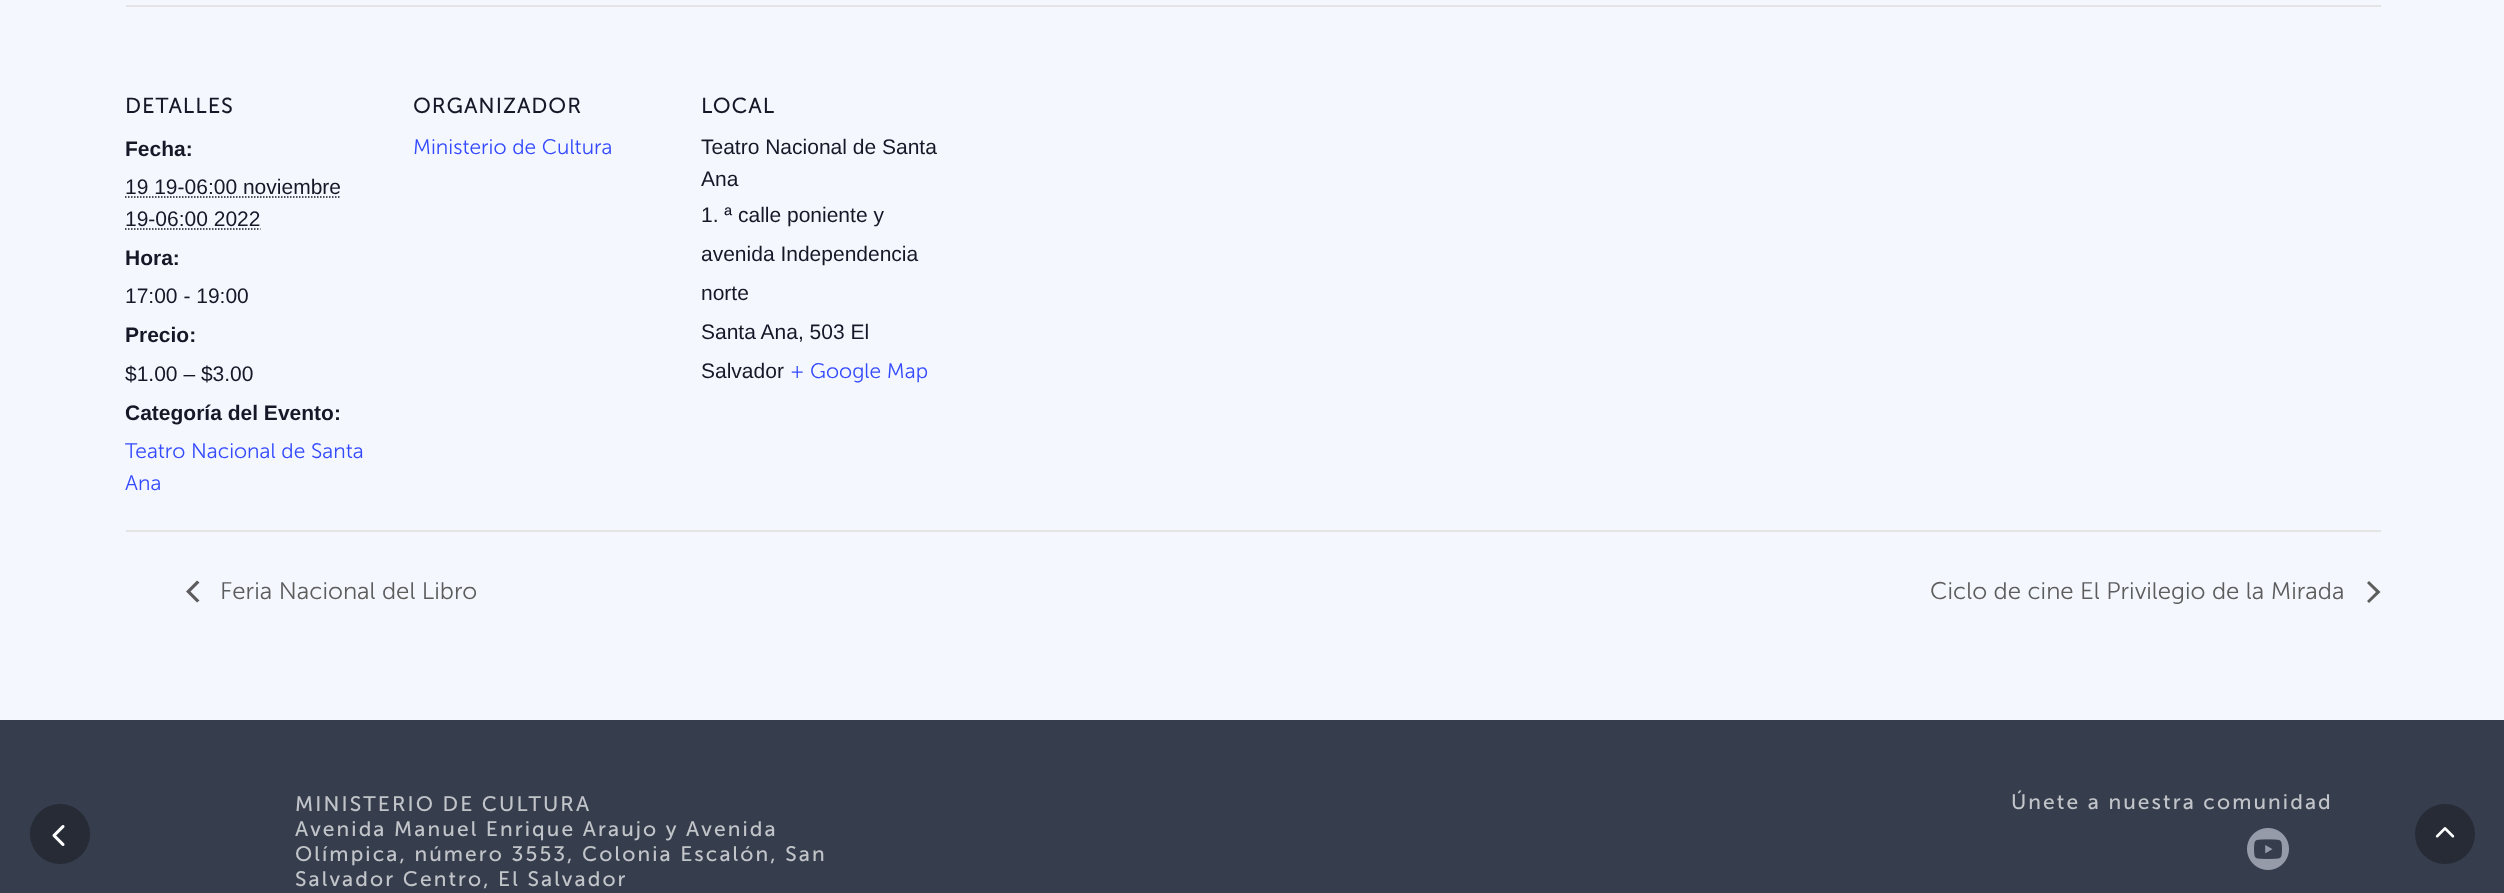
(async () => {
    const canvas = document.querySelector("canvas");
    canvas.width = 2504;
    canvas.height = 893;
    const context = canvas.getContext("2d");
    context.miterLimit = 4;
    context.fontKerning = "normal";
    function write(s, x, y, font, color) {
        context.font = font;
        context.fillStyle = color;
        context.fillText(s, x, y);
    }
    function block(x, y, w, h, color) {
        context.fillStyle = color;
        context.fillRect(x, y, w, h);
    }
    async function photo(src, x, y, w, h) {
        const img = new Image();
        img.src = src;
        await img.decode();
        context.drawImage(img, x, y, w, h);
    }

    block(0, 0, 2504, 893, "rgb(245, 247, 254)");
    block(126, 5, 2255, 2, "rgb(228, 228, 228)");
    context.letterSpacing = "1.5px";
    write("DETALLES", 125, 113, "bold 21px Museo Sans", "rgb(20, 24, 39)");
    context.letterSpacing = "0px";
    write("Fecha:", 125, 156, "bold 21px Liberation Sans", "rgb(20, 24, 39)");
    write("19 19-06:00 noviembre", 125, 194, "21px Liberation Sans", "rgb(20, 24, 39)");
    context.beginPath();
    context.moveTo(125, 197);
    context.lineTo(341, 197);
    context.strokeStyle = "rgb(20, 24, 39)";
    context.lineWidth = 1.5;
    context.setLineDash([1.5, 1.5]);
    context.stroke();
    write("19-06:00 2022", 125, 226, "21px Liberation Sans", "rgb(20, 24, 39)");
    context.beginPath();
    context.moveTo(125, 229);
    context.lineTo(260.5, 229);
    context.stroke();
    write("Hora:", 125, 265, "bold 21px Liberation Sans", "rgb(20, 24, 39)");
    write("17:00 - 19:00", 125, 303, "21px Liberation Sans", "rgb(20, 24, 39)");
    write("Precio:", 125, 342, "bold 21px Liberation Sans", "rgb(20, 24, 39)");
    write("$1.00 – $3.00", 125, 381, "21px Liberation Sans", "rgb(20, 24, 39)");
    write("Categoría del Evento:", 125, 420, "bold 21px Liberation Sans", "rgb(20, 24, 39)");
    write("Teatro Nacional de Santa", 125, 458, "300 21px Museo Sans", "rgb(51, 74, 255)");
    write("Ana", 125, 490, "300 21px Museo Sans", "rgb(51, 74, 255)");
    context.letterSpacing = "1.5px";
    write("ORGANIZADOR", 413, 113, "bold 21px Museo Sans", "rgb(20, 24, 39)");
    context.letterSpacing = "0px";
    write("Ministerio de Cultura", 413, 154, "300 21px Museo Sans", "rgb(51, 74, 255)");
    context.letterSpacing = "1.5px";
    write("LOCAL", 701, 113, "bold 21px Museo Sans", "rgb(20, 24, 39)");
    context.letterSpacing = "0px";
    write("Teatro Nacional de Santa", 701, 154, "21px Liberation Sans", "rgb(20, 24, 39)");
    write("Ana", 701, 186, "21px Liberation Sans", "rgb(20, 24, 39)");
    write("1. ª calle poniente y", 701, 222, "21px Liberation Sans", "rgb(20, 24, 39)");
    write("avenida Independencia", 701, 261, "21px Liberation Sans", "rgb(20, 24, 39)");
    write("norte", 701, 300, "21px Liberation Sans", "rgb(20, 24, 39)");
    write("Santa Ana, 503 El", 701, 339, "21px Liberation Sans", "rgb(20, 24, 39)");
    write("Salvador", 701, 378, "21px Liberation Sans", "rgb(20, 24, 39)");
    write("+ Google Map", 790, 378, "300 21px Museo Sans", "rgb(51, 74, 255)");
    block(126, 530, 2255, 2, "rgb(228, 228, 228)");
    context.fillStyle = "rgb(93, 93, 93)";
    context.beginPath();
    context.moveTo(199.5, 600.5);
    context.lineTo(197, 602.5);
    context.lineTo(186, 591.5);
    context.lineTo(197, 580.5);
    context.lineTo(199.5, 582.5);
    context.lineTo(190.5, 591.5);
    context.closePath();
    context.fill();
    write("Feria Nacional del Libro", 220, 599, "300 24px Museo Sans", "rgb(93, 93, 93)");
    write("Ciclo de cine El Privilegio de la Mirada", 1930, 599, "300 24px Museo Sans", "rgb(93, 93, 93)");
    context.beginPath();
    context.moveTo(2367, 583);
    context.lineTo(2369, 581);
    context.lineTo(2380.5, 592);
    context.lineTo(2369, 603);
    context.lineTo(2367, 601);
    context.lineTo(2376, 592);
    context.closePath();
    context.fill();
    block(0, 720, 2504, 173, "rgb(54, 61, 77)");
    context.fillStyle = "rgb(38, 43, 54)";
    context.beginPath();
    context.arc(60, 834, 30, 0, Math.PI * 2);
    context.fill();
    await photo("media/1.png", 52, 825, 13, 21);
    context.letterSpacing = "2.1px";
    write("MINISTERIO DE CULTURA", 295, 811, "21px Museo Sans", "rgb(193, 196, 200)");
    write("Avenida Manuel Enrique Araujo y Avenida", 295, 836, "21px Museo Sans", "rgb(193, 196, 200)");
    write("Olímpica, número 3553, Colonia Escalón, San", 295, 861, "21px Museo Sans", "rgb(193, 196, 200)");
    write("Salvador Centro, El Salvador", 295, 886, "21px Museo Sans", "rgb(193, 196, 200)");
    write("Únete a nuestra comunidad", 2011, 809, "21px Museo Sans", "rgb(193, 196, 200)");
    await photo("media/2.png", 2247, 828, 42, 42);
    context.fillStyle = "rgb(38, 43, 54)";
    context.beginPath();
    context.arc(2445, 834, 30, 0, Math.PI * 2);
    context.fill();
    await photo("media/3.png", 2435, 827, 20, 11);
})();
